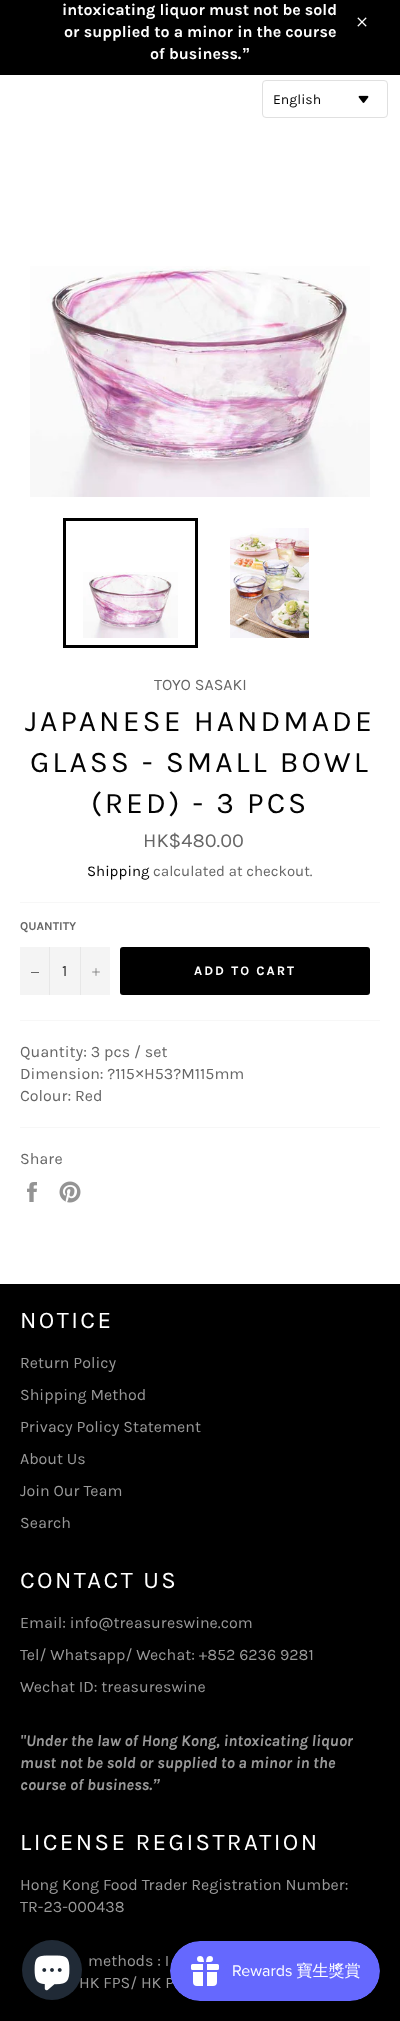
(async () => {
    const canvas = document.querySelector("canvas");
    canvas.width = 400;
    canvas.height = 2021;
    const context = canvas.getContext("2d");
    context.miterLimit = 4;
    context.fontKerning = "normal";
    function write(s, x, y, font, color) {
        context.font = font;
        context.fillStyle = color;
        context.fillText(s, x, y);
    }
    function block(x, y, w, h, color) {
        context.fillStyle = color;
        context.fillRect(x, y, w, h);
    }
    function card(x, y, w, h, r, color) {
        context.fillStyle = color;
        context.beginPath();
        context.roundRect(x, y, w, h, r);
        context.fill();
    }
    async function photo(src, x, y, w, h) {
        const img = new Image();
        img.src = src;
        await img.decode();
        context.drawImage(img, x, y, w, h);
    }

    block(0, 0, 400, 2021, "rgb(0, 0, 0)");
    write("intoxicating liquor must not be sold", 62, 15, "bold 16px Karla", "rgb(255, 255, 255)");
    write("or supplied to a minor in the course", 64, 37, "bold 16px Karla", "rgb(255, 255, 255)");
    write("of business.", 150, 59, "bold 16px Karla", "rgb(255, 255, 255)");
    write("”", 242, 59, "bold 16px Liberation Sans", "rgb(255, 255, 255)");
    await photo("media/1.png", 357, 17, 10, 10);
    block(0, 75, 400, 1209, "rgb(255, 255, 255)");
    context.beginPath();
    context.roundRect(262.5, 80.5, 125, 37, 3.5);
    context.strokeStyle = "rgb(224, 224, 224)";
    context.stroke();
    write("English", 273, 104, "14px Karla", "rgb(3, 3, 3)");
    await photo("media/2.png", 358, 95, 11, 8);
    await photo("media/3.png", 30, 266, 340, 231);
    await photo("media/4.png", 83, 572, 95, 66);
    context.strokeStyle = "rgb(0, 0, 0)";
    context.lineWidth = 3;
    context.strokeRect(64.5, 519.5, 132, 127);
    await photo("media/5.png", 230, 528, 79, 110);
    write("TOYO SASAKI", 154, 690, "16px Karla", "rgb(102, 102, 102)");
    context.letterSpacing = "3px";
    write("JAPANESE HANDMADE", 25, 731, "30px Karla", "rgb(3, 3, 3)");
    write("GLASS - SMALL BOWL", 30, 772, "30px Karla", "rgb(3, 3, 3)");
    write("(RED) - 3 PCS", 91, 813, "30px Karla", "rgb(3, 3, 3)");
    context.letterSpacing = "0px";
    write("HK$480.00", 143, 847, "20px Karla", "rgb(102, 102, 102)");
    write("Shipping", 87, 876, "15px Karla", "rgb(3, 3, 3)");
    write("calculated at checkout.", 153, 876, "15px Karla", "rgb(102, 102, 102)");
    block(20, 902, 360, 1, "rgb(247, 247, 247)");
    write("QUANTITY", 20, 930, "bold 12px Karla", "rgb(102, 102, 102)");
    block(20, 947, 90, 48, "rgb(244, 244, 244)");
    block(49, 947, 1, 48, "rgb(231, 231, 231)");
    block(31, 972, 8, 1, "rgb(102, 102, 102)");
    write("1", 62, 976, "16px Karla", "rgb(51, 51, 51)");
    block(80, 947, 1, 48, "rgb(231, 231, 231)");
    await photo("media/6.png", 92, 968, 8, 8);
    card(120, 947, 250, 48, 3, "rgb(0, 0, 0)");
    context.letterSpacing = "2px";
    write("ADD TO CART", 194, 975, "bold 13px Karla", "rgb(255, 255, 255)");
    block(20, 1020, 360, 1, "rgb(247, 247, 247)");
    context.letterSpacing = "0px";
    write("Quantity: 3 pcs / set", 20, 1057, "16px Karla", "rgb(102, 102, 102)");
    write("Dimension: ?115", 20, 1079, "16px Karla", "rgb(102, 102, 102)");
    write("×", 135, 1079, "16px Liberation Sans", "rgb(102, 102, 102)");
    write("H53?M115mm", 144, 1079, "16px Karla", "rgb(102, 102, 102)");
    write("Colour: Red", 20, 1101, "16px Karla", "rgb(102, 102, 102)");
    block(20, 1127, 360, 1, "rgb(247, 247, 247)");
    write("Share", 20, 1164, "16px Karla", "rgb(102, 102, 102)");
    await photo("media/7.png", 27, 1182, 10, 20);
    await photo("media/8.png", 59, 1181, 22, 22);
    context.letterSpacing = "2.4px";
    write("NOTICE", 20, 1328, "24px Karla", "rgb(255, 255, 255)");
    context.letterSpacing = "0px";
    write("Return Policy", 20, 1368, "16px Karla", "rgb(153, 153, 153)");
    write("Shipping Method", 20, 1400, "16px Karla", "rgb(153, 153, 153)");
    write("Privacy Policy Statement", 20, 1432, "16px Karla", "rgb(153, 153, 153)");
    write("About Us", 20, 1464, "16px Karla", "rgb(153, 153, 153)");
    write("Join Our Team", 20, 1496, "16px Karla", "rgb(153, 153, 153)");
    write("Search", 20, 1528, "16px Karla", "rgb(153, 153, 153)");
    context.letterSpacing = "2.4px";
    write("CONTACT US", 20, 1588, "24px Karla", "rgb(255, 255, 255)");
    context.letterSpacing = "0px";
    write("Email: info@treasureswine.com", 20, 1628, "16px Karla", "rgb(153, 153, 153)");
    write("Tel/ Whatsapp/ Wechat: +852 6236 9281", 20, 1660, "16px Karla", "rgb(153, 153, 153)");
    write("Wechat ID: treasureswine", 20, 1692, "16px Karla", "rgb(153, 153, 153)");
    write("\"Under the law of Hong Kong, intoxicating liquor", 20, 1746, "italic bold 16px Karla", "rgb(153, 153, 153)");
    write("must not be sold or supplied to a minor in the", 20, 1768, "italic bold 16px Karla", "rgb(153, 153, 153)");
    write("course of business.", 20, 1790, "italic bold 16px Karla", "rgb(153, 153, 153)");
    write("”", 152, 1790, "italic bold 16px Liberation Sans", "rgb(153, 153, 153)");
    context.letterSpacing = "2.4px";
    write("LICENSE REGISTRATION", 20, 1850, "24px Karla", "rgb(255, 255, 255)");
    context.letterSpacing = "0px";
    write("Hong Kong Food Trader Registration Number:", 20, 1890, "16px Karla", "rgb(153, 153, 153)");
    write("TR-23-000438", 20, 1912, "16px Karla", "rgb(153, 153, 153)");
    write("methods : I", 88, 1966, "16px Karla", "rgb(153, 153, 153)");
    write("HK FPS/ HK P", 79, 1988, "16px Karla", "rgb(153, 153, 153)");
    context.fillStyle = "rgb(32, 42, 54)";
    context.beginPath();
    context.arc(52, 1970, 30, 0, Math.PI * 2);
    context.fill();
    await photo("media/9.png", 34, 1955, 36, 36);
    await photo("media/10.png", 170, 1941, 210, 60);
})();
